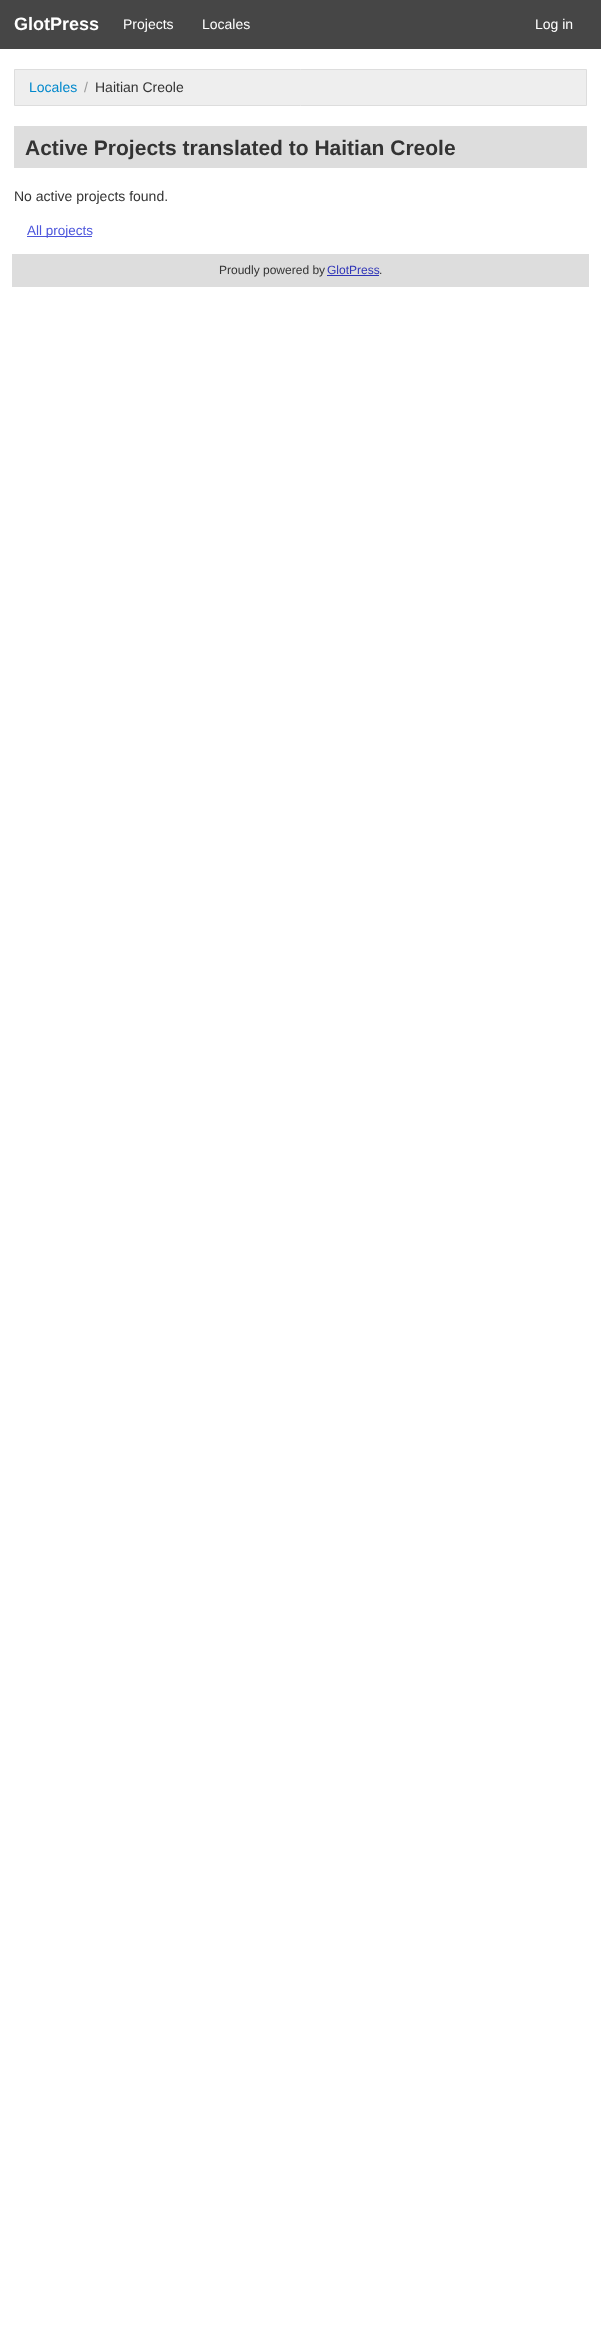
(async () => {
    const canvas = document.querySelector("canvas");
    canvas.width = 601;
    canvas.height = 2341;
    const context = canvas.getContext("2d");
    context.miterLimit = 4;
    context.fontKerning = "normal";
    function write(s, x, y, font, color) {
        context.font = font;
        context.fillStyle = color;
        context.fillText(s, x, y);
    }
    function block(x, y, w, h, color) {
        context.fillStyle = color;
        context.fillRect(x, y, w, h);
    }

    block(0, 0, 601, 2341, "rgb(255, 255, 255)");
    block(0, 0, 601, 49, "rgb(70, 70, 70)");
    write("GlotPress", 14, 30, "bold 18px Liberation Sans", "rgb(255, 255, 255)");
    write("Projects", 123, 29, "14px Liberation Sans", "rgb(255, 255, 255)");
    write("Locales", 202, 29, "14px Liberation Sans", "rgb(255, 255, 255)");
    write("Log in", 535, 29, "14px Liberation Sans", "rgb(255, 255, 255)");
    context.fillStyle = "rgb(238, 238, 238)";
    context.beginPath();
    context.rect(14.5, 69.5, 572, 36);
    context.fill();
    context.strokeStyle = "rgb(221, 221, 221)";
    context.stroke();
    write("Locales", 29, 92, "14px Liberation Sans", "rgb(0, 136, 204)");
    write("/", 84, 92, "14px Liberation Sans", "rgb(153, 153, 153)");
    write("Haitian Creole", 95, 92, "14px Liberation Sans", "rgb(51, 51, 51)");
    block(14, 126, 573, 42, "rgb(221, 221, 221)");
    write("Active Projects translated to Haitian Creole", 25, 155, "bold 21px Liberation Sans", "rgb(51, 51, 51)");
    write("No active projects found.", 14, 201, "14px Liberation Sans", "rgb(51, 51, 51)");
    block(27, 236, 65, 1, "rgb(77, 86, 220)");
    write("All projects", 27, 235, "13.5px Liberation Sans", "rgb(77, 86, 220)");
    block(12, 254, 577, 33, "rgb(221, 221, 221)");
    write("Proudly powered by", 219, 274, "12px Liberation Sans", "rgb(51, 51, 51)");
    write("GlotPress", 327, 274, "12px Liberation Sans", "rgb(47, 52, 184)");
    block(327, 275, 52, 1, "rgb(47, 52, 184)");
    write(".", 379, 274, "12px Liberation Sans", "rgb(51, 51, 51)");
})();
